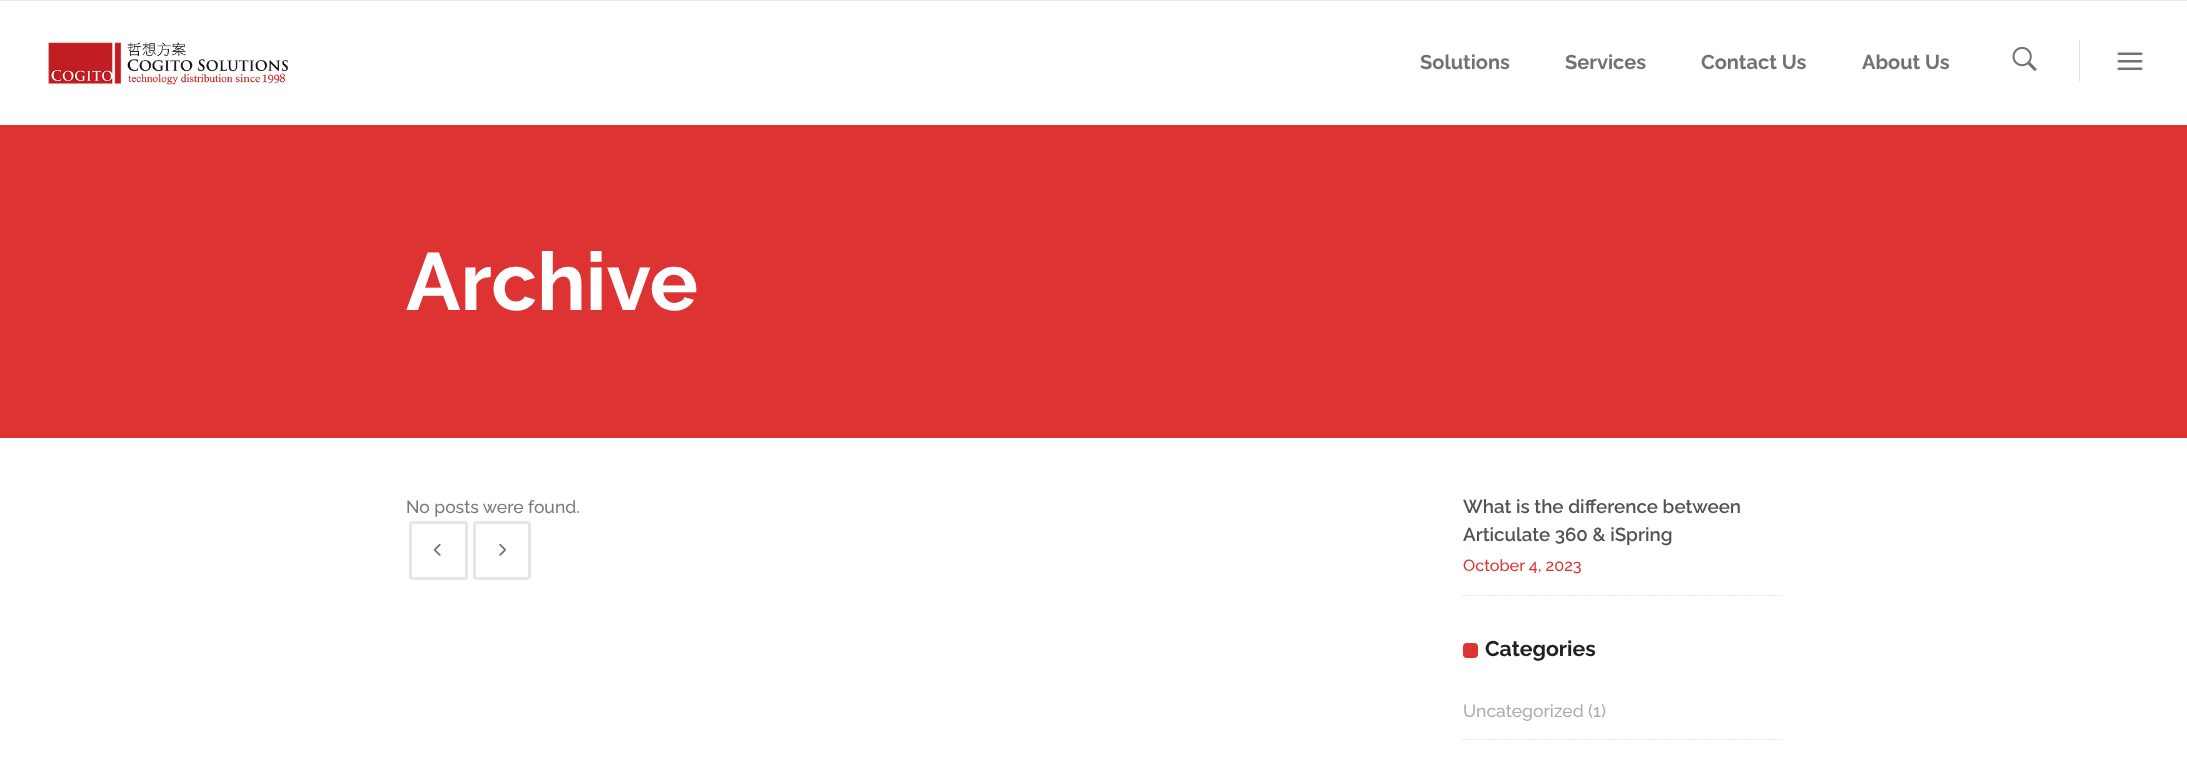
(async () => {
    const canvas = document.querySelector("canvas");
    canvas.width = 2187;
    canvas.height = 761;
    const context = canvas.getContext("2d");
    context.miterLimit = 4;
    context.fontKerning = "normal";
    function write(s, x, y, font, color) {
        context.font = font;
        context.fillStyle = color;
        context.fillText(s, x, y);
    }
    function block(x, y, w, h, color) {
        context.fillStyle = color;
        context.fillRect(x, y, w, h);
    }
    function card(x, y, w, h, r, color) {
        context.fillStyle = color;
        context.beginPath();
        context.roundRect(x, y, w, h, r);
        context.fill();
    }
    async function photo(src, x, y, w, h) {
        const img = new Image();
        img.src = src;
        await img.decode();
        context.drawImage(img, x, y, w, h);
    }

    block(0, 0, 2187, 761, "rgb(255, 255, 255)");
    block(0, 0, 2187, 1, "rgb(231, 231, 231)");
    await photo("media/1.png", 48, 42, 240, 43);
    write("Solutions", 1420, 69, "bold 20px Raleway", "rgb(114, 114, 114)");
    write("Services", 1565, 69, "bold 20px Raleway", "rgb(114, 114, 114)");
    write("Contact Us", 1701, 69, "bold 20px Raleway", "rgb(114, 114, 114)");
    write("About Us", 1862, 69, "bold 20px Raleway", "rgb(114, 114, 114)");
    await photo("media/2.png", 2012, 46, 25, 26);
    block(2079, 40, 1, 41, "rgb(221, 221, 221)");
    await photo("media/3.png", 2117, 52, 26, 18);
    block(0, 125, 2187, 313, "rgb(221, 51, 51)");
    write("Archive", 406, 310, "bold 81px Raleway", "rgb(255, 255, 255)");
    write("No posts were found.", 406, 513, "500 17.5px Raleway", "rgb(121, 121, 121)");
    context.beginPath();
    context.roundRect(410.5, 522.5, 56, 56, 2.5);
    context.strokeStyle = "rgb(230, 230, 230)";
    context.lineWidth = 3;
    context.stroke();
    await photo("media/4.png", 433, 543, 8, 13);
    context.beginPath();
    context.roundRect(474.5, 522.5, 55, 56, 2.5);
    context.stroke();
    await photo("media/5.png", 499, 543, 7, 13);
    context.beginPath();
    context.moveTo(1462.5, 595.5);
    context.lineTo(1781, 595.5);
    context.strokeStyle = "rgb(223, 223, 223)";
    context.lineWidth = 1.2;
    context.setLineDash([1.25, 1.25]);
    context.stroke();
    write("What is the difference between", 1463, 513, "600 18.75px Raleway", "rgb(83, 83, 83)");
    write("Articulate 360 & iSpring", 1463, 541, "600 18.75px Raleway", "rgb(83, 83, 83)");
    write("October 4, 2023", 1463, 571, "500 16.25px Raleway", "rgb(221, 51, 51)");
    card(1463, 643, 15, 15, 4, "rgb(221, 51, 51)");
    write("Categories", 1485, 656, "bold 21.25px Raleway", "rgb(33, 33, 33)");
    context.beginPath();
    context.moveTo(1462.5, 739.5);
    context.lineTo(1781, 739.5);
    context.stroke();
    write("Uncategorized (1)", 1463, 717, "500 17.5px Raleway", "rgb(172, 172, 172)");
})();
